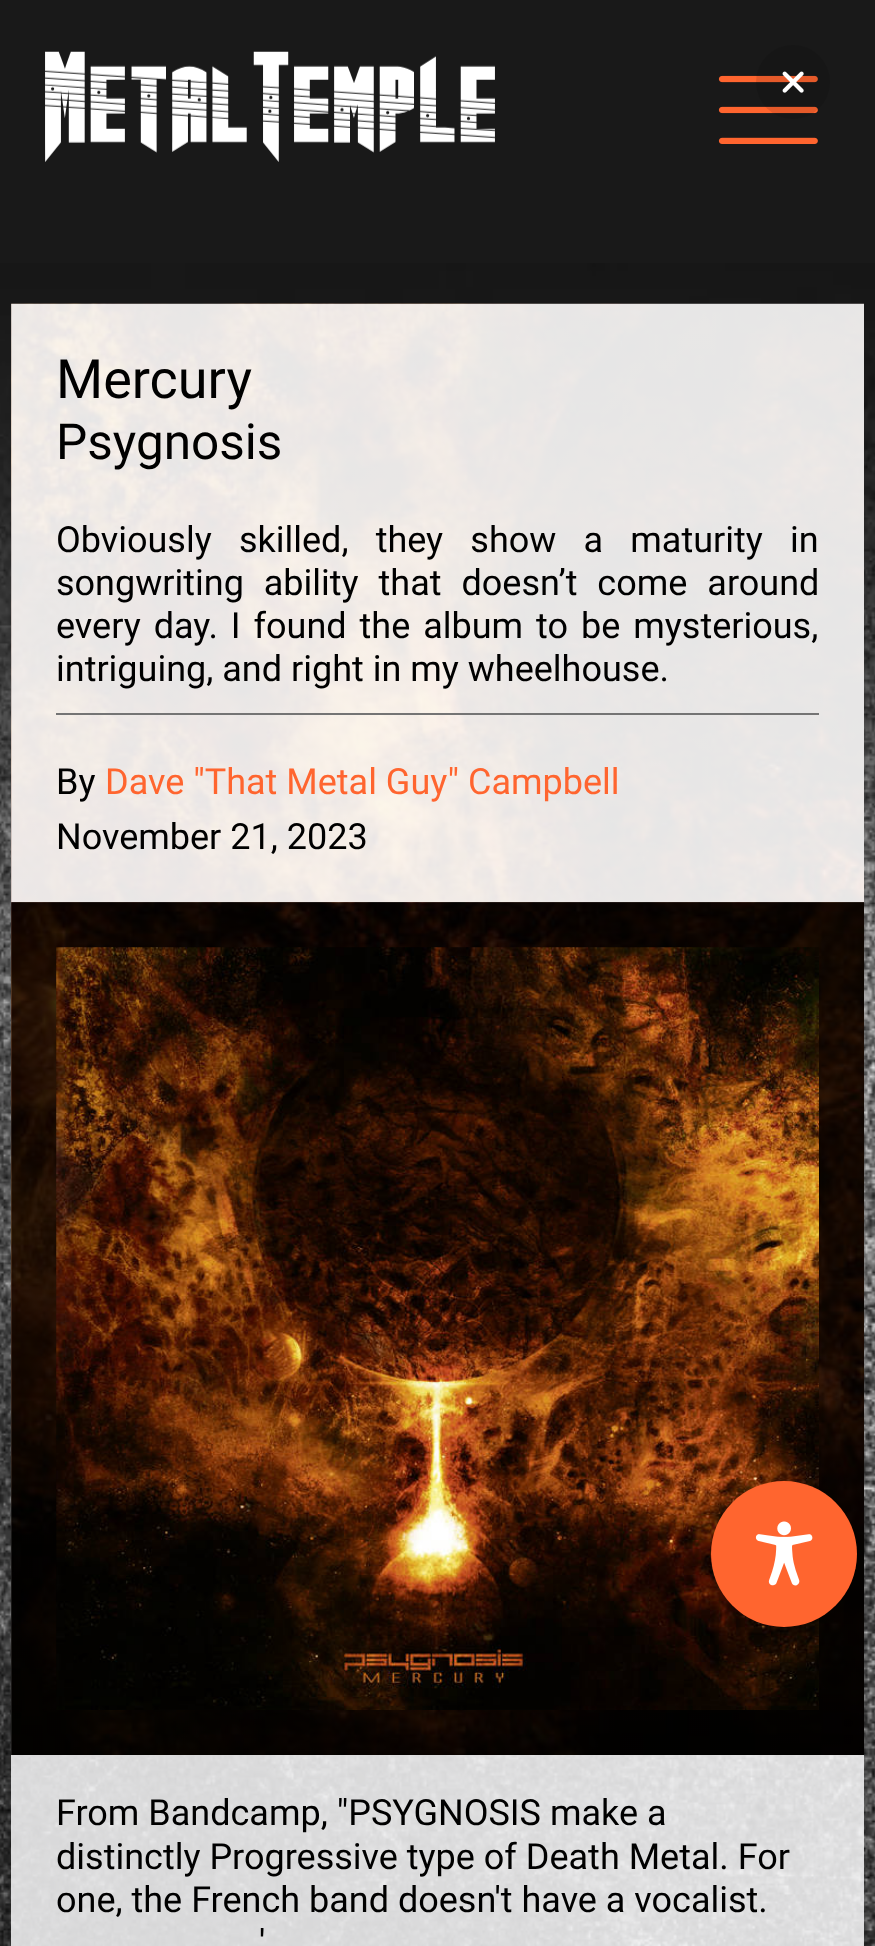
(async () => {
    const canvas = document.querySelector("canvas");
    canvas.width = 875;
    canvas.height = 1946;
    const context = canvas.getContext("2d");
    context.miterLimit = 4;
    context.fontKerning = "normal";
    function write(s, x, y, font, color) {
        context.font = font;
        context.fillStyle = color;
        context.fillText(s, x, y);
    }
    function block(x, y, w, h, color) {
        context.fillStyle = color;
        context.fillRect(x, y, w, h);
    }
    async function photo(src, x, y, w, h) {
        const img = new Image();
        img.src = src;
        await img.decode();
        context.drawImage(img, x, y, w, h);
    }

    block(0, 0, 875, 1946, "rgb(25, 25, 25)");
    await photo("media/1.png", 0, 263, 875, 1683);
    await photo("media/4.png", 718, 75, 100, 69);
    context.fillStyle = "rgba(0, 0, 0, 0.1)";
    context.beginPath();
    context.arc(793, 82, 37, 0, Math.PI * 2);
    context.fill();
    await photo("media/2.png", 782, 71, 22, 22);
    await photo("media/3.png", 45, 51, 450, 111);
    await photo("media/5.png", 11, 303, 853, 600);
    write("Mercury", 56, 398, "54px Roboto", "rgb(0, 0, 0)");
    write("Psygnosis", 56, 459, "49.5px Roboto", "rgb(0, 0, 0)");
    block(56, 713, 763, 2, "rgb(116, 116, 116)");
    context.wordSpacing = "18.25px";
    write("Obviously skilled, they show a maturity in", 56, 552, "36px Roboto", "rgb(0, 0, 0)");
    context.wordSpacing = "11px";
    write("songwriting ability that doesn’t come around", 56, 595, "36px Roboto", "rgb(0, 0, 0)");
    context.wordSpacing = "4px";
    write("every day. I found the album to be mysterious,", 56, 638, "36px Roboto", "rgb(0, 0, 0)");
    context.wordSpacing = "0px";
    write("intriguing, and right in my wheelhouse.", 56, 681, "36px Roboto", "rgb(0, 0, 0)");
    write("By", 56, 794, "36px Roboto", "rgb(0, 0, 0)");
    write("Dave \"That Metal Guy\" Campbell", 105, 794, "36px Roboto", "rgb(255, 101, 47)");
    write("November 21, 2023", 56, 849, "36px Roboto", "rgb(0, 0, 0)");
    await photo("media/6.png", 11, 902, 853, 853);
    await photo("media/7.png", 56, 947, 763, 763);
    write("From Bandcamp, \"PSYGNOSIS make a", 56, 1825, "36px Roboto", "rgb(0, 0, 0)");
    write("distinctly Progressive type of Death Metal. For", 56, 1869, "36px Roboto", "rgb(0, 0, 0)");
    write("one, the French band doesn't have a vocalist.", 56, 1912, "36px Roboto", "rgb(0, 0, 0)");
    write("'", 259, 1955, "36px Roboto", "rgb(0, 0, 0)");
    context.fillStyle = "rgb(255, 101, 47)";
    context.beginPath();
    context.arc(784, 1554, 73, 0, Math.PI * 2);
    context.fill();
    await photo("media/8.png", 755, 1521, 58, 65);
})();
